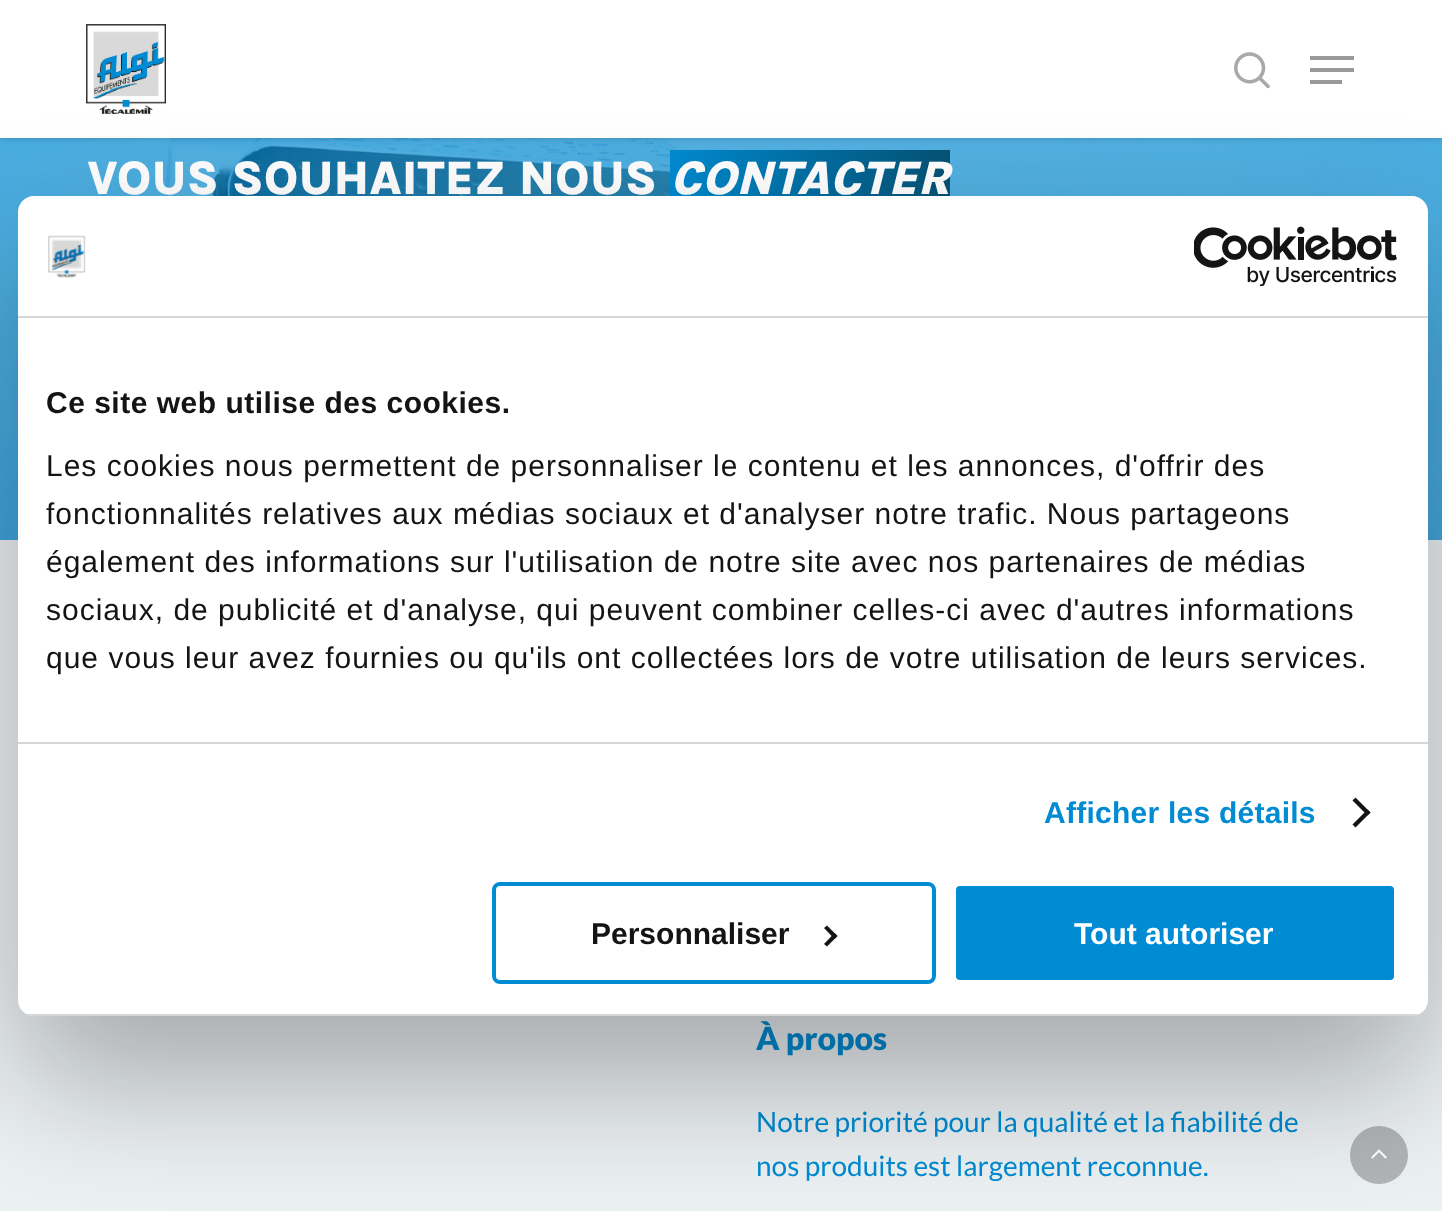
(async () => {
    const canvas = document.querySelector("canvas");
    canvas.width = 1442;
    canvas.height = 1211;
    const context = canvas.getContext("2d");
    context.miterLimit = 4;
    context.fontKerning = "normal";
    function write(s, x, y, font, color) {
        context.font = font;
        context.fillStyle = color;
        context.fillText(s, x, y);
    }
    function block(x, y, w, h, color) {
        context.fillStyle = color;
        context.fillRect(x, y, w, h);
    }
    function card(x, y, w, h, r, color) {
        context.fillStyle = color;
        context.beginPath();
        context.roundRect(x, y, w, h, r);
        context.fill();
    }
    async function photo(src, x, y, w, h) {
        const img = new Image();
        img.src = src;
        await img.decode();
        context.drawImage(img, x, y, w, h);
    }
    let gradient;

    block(0, 0, 1442, 1211, "rgb(236, 241, 244)");
    await photo("media/3.png", 0, 138, 1442, 402);
    context.fillStyle = "rgba(0, 0, 0, 0.22)";
    context.filter = "blur(3px)";
    context.beginPath();
    context.rect(0, -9, 1442, 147);
    context.fill();
    context.filter = "none";
    block(0, 0, 1442, 138, "rgb(255, 255, 255)");
    await photo("media/1.png", 86, 24, 80, 90);
    await photo("media/2.png", 1234, 52, 36, 37);
    block(1310, 56, 44, 4, "rgb(153, 153, 153)");
    block(1310, 80, 32, 4, "rgb(153, 153, 153)");
    block(1310, 68, 44, 4, "rgb(153, 153, 153)");
    write("VOUS SOUHAITEZ NOUS", 87, 194, "800 48px Karla", "rgb(255, 255, 255)");
    gradient = context.createLinearGradient(670, 178, 950, 178);
    gradient.addColorStop(0, "rgb(0, 139, 210)");
    gradient.addColorStop(1, "rgb(5, 82, 116)");
    context.fillStyle = gradient;
    context.fillRect(670, 150, 280, 46);
    write("CONTACTER", 670, 194, "italic 800 48px Karla", "rgb(255, 255, 255)");
    write("À propos", 756, 1050, "900 32px Lato", "rgb(0, 139, 210)");
    write("Notre priorité pour la qualité et la fiabilité de", 756, 1132, "28px Lato", "rgb(0, 139, 210)");
    write("nos produits est largement reconnue.", 756, 1176, "28px Lato", "rgb(0, 139, 210)");
    context.fillStyle = "rgb(177, 181, 183)";
    context.beginPath();
    context.arc(1379, 1155, 29, 0, Math.PI * 2);
    context.fill();
    await photo("media/4.png", 1371, 1149, 16, 10);
    context.fillStyle = "rgba(0, 0, 0, 0.3)";
    context.filter = "blur(68px)";
    context.beginPath();
    context.roundRect(18, 260, 1410, 820, 16);
    context.fill();
    context.filter = "none";
    card(18, 196, 1410, 820, 16, "rgb(255, 255, 255)");
    block(18, 316, 1410, 2, "rgb(214, 214, 214)");
    await photo("media/5.png", 48, 235, 38, 43);
    await photo("media/6.png", 1194, 226, 203, 60);
    block(18, 742, 1410, 2, "rgb(214, 214, 214)");
    context.letterSpacing = "0.5px";
    write("Ce site web utilise des cookies.", 46, 413, "bold 30px Liberation Sans", "rgb(20, 20, 20)");
    context.letterSpacing = "1px";
    write("Les cookies nous permettent de personnaliser le contenu et les annonces, d'offrir des", 46, 476, "30px Liberation Sans", "rgb(20, 20, 20)");
    write("fonctionnalités relatives aux médias sociaux et d'analyser notre trafic. Nous partageons", 46, 524, "30px Liberation Sans", "rgb(20, 20, 20)");
    write("également des informations sur l'utilisation de notre site avec nos partenaires de médias", 46, 572, "30px Liberation Sans", "rgb(20, 20, 20)");
    write("sociaux, de publicité et d'analyse, qui peuvent combiner celles-ci avec d'autres informations", 46, 620, "30px Liberation Sans", "rgb(20, 20, 20)");
    write("que vous leur avez fournies ou qu'ils ont collectées lors de votre utilisation de leurs services.", 46, 668, "30px Liberation Sans", "rgb(20, 20, 20)");
    context.letterSpacing = "0.25px";
    write("Afficher les détails", 1044, 823, "bold 30px Liberation Sans", "rgb(0, 139, 210)");
    context.fillStyle = "rgb(20, 20, 20)";
    context.beginPath();
    context.moveTo(1355.5, 797.5);
    context.lineTo(1370.5, 812.5);
    context.lineTo(1367.5, 815.5);
    context.lineTo(1352.5, 800.5);
    context.closePath();
    context.fill();
    context.beginPath();
    context.moveTo(1367.5, 809.5);
    context.lineTo(1370.5, 812.5);
    context.lineTo(1355.5, 827.5);
    context.lineTo(1352.5, 824.5);
    context.closePath();
    context.fill();
    context.save();
    context.beginPath();
    context.roundRect(18, 196, 1410, 820, 16);
    context.clip();
    block(18, 1014, 1410, 2, "rgb(214, 214, 214)");
    context.restore();
    context.beginPath();
    context.roundRect(494, 884, 440, 98, 6);
    context.strokeStyle = "rgb(1, 139, 210)";
    context.lineWidth = 4;
    context.stroke();
    context.letterSpacing = "0px";
    write("Personnaliser", 591, 944, "bold 30px Liberation Sans", "rgb(20, 20, 20)");
    context.beginPath();
    context.moveTo(827, 925.5);
    context.lineTo(837.5, 936);
    context.lineTo(834.5, 939);
    context.lineTo(824, 928);
    context.closePath();
    context.fill();
    context.beginPath();
    context.moveTo(834.5, 933);
    context.lineTo(837.5, 936);
    context.lineTo(827, 946.5);
    context.lineTo(824, 944);
    context.closePath();
    context.fill();
    context.fillStyle = "rgb(1, 139, 210)";
    context.beginPath();
    context.roundRect(954, 884, 442, 98, 6);
    context.fill();
    context.strokeStyle = "rgb(255, 255, 255)";
    context.stroke();
    write("Tout autoriser", 1074, 944, "bold 30px Liberation Sans", "rgb(255, 255, 255)");
})();
